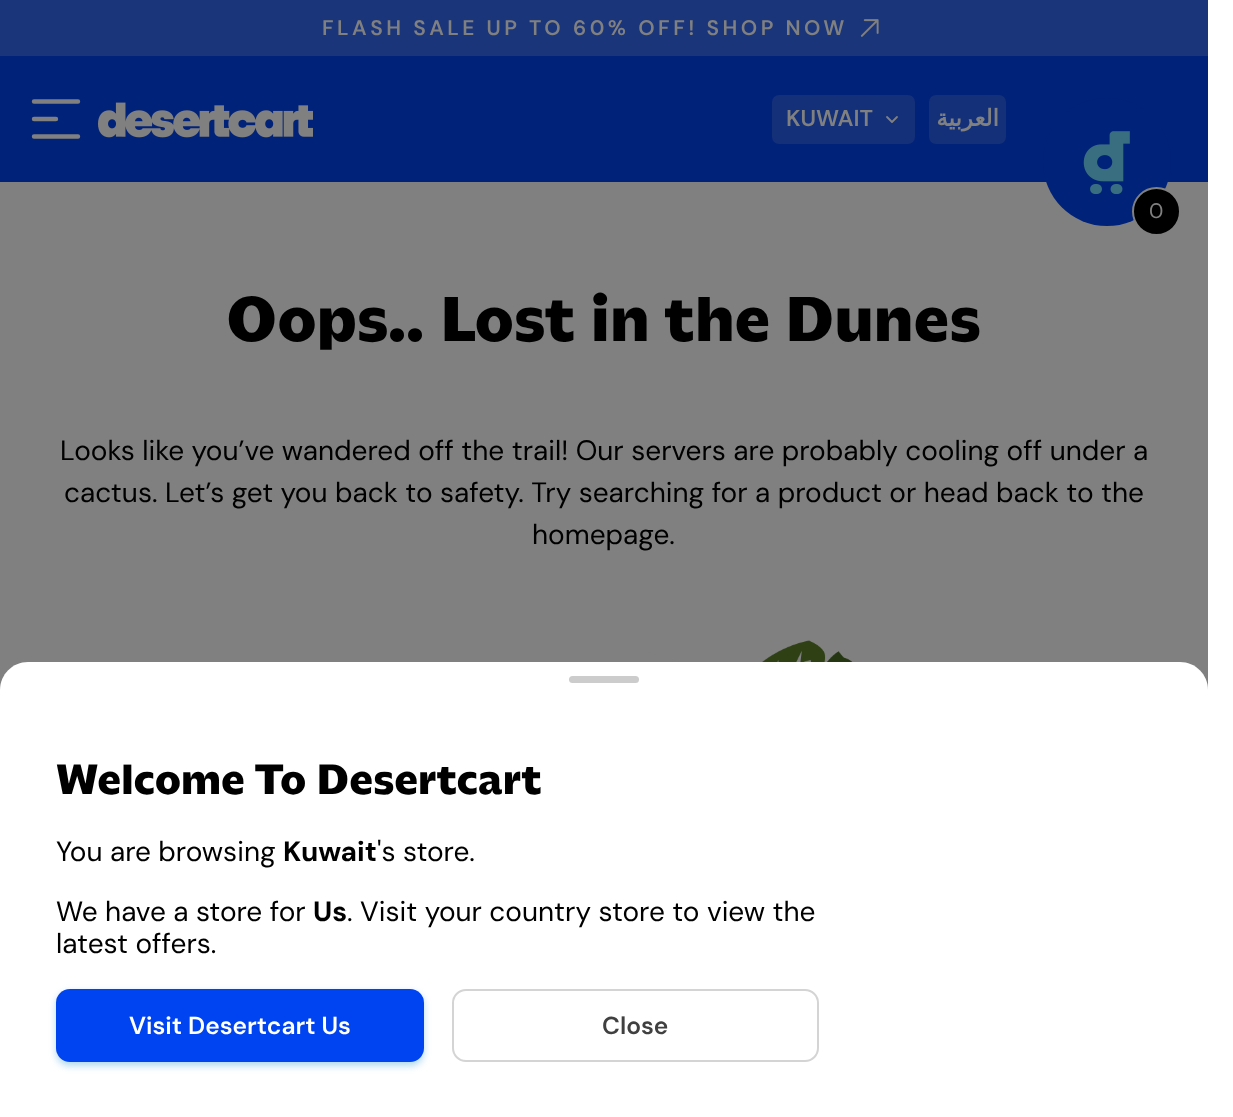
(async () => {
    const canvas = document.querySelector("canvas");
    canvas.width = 1233;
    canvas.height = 1117;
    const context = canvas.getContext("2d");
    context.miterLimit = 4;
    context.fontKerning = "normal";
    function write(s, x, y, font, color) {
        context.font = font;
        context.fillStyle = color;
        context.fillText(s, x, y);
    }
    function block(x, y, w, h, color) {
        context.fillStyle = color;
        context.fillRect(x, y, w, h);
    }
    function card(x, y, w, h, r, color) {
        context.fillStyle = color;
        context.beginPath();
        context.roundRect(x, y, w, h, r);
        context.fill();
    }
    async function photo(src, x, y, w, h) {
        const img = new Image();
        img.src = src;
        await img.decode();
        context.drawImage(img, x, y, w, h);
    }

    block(0, 0, 1233, 1117, "rgb(255, 255, 255)");
    block(0, 182, 1208, 508, "rgb(128, 128, 128)");
    block(0, 0, 1208, 56, "rgb(26, 53, 122)");
    context.letterSpacing = "3.5px";
    write("FLASH SALE UP TO 60% OFF! SHOP NOW", 322, 35, "600 21px DM Sans", "rgb(128, 128, 128)");
    await photo("media/1.png", 860, 19, 19, 18);
    block(0, 56, 1006, 126, "rgb(0, 34, 120)");
    context.beginPath();
    context.moveTo(34, 101.5);
    context.lineTo(78, 101.5);
    context.moveTo(34, 119);
    context.lineTo(56, 119);
    context.moveTo(34, 136.5);
    context.lineTo(78, 136.5);
    context.strokeStyle = "rgb(128, 128, 128)";
    context.lineWidth = 4.4;
    context.lineCap = "round";
    context.lineJoin = "round";
    context.stroke();
    await photo("media/2.png", 98, 102, 215, 36);
    card(772, 95, 143, 49, 7, "rgb(19, 48, 121)");
    context.letterSpacing = "0px";
    write("KUWAIT", 786, 126, "600 23px DM Sans", "rgb(128, 128, 128)");
    context.beginPath();
    context.moveTo(897, 117);
    context.lineTo(892, 122);
    context.lineTo(887, 117);
    context.lineWidth = 1.8;
    context.stroke();
    card(929, 95, 77, 49, 7, "rgb(19, 48, 121)");
    context.direction = "rtl";
    write("العربية", 999, 126, "bold 23px DejaVu Sans", "rgb(128, 128, 128)");
    block(1006, 56, 202, 126, "rgb(0, 34, 120)");
    context.beginPath();
    context.arc(1107, 162, 64, 0, Math.PI * 2);
    context.fill();
    await photo("media/3.png", 1083, 131, 47, 63);
    context.fillStyle = "rgb(0, 0, 0)";
    context.beginPath();
    context.arc(1156.5, 211.5, 23.5, 0, Math.PI * 2);
    context.fill();
    context.lineWidth = 2;
    context.stroke();
    context.direction = "ltr";
    write("0", 1149, 218, "21px DM Sans", "rgb(128, 128, 128)");
    write("Oops.. Lost in the Dunes", 226, 341, "bold 63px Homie", "rgb(0, 0, 0)");
    write("Looks like you’ve wandered off the trail! Our servers are probably cooling off under a", 60, 460, "28px DM Sans", "rgb(0, 0, 0)");
    write("cactus. Let’s get you back to safety. Try searching for a product or head back to the", 64, 502, "28px DM Sans", "rgb(0, 0, 0)");
    write("homepage.", 532, 544, "28px DM Sans", "rgb(0, 0, 0)");
    await photo("media/4.png", 485, 640, 368, 22);
    context.fillStyle = "rgb(255, 255, 255)";
    context.beginPath();
    context.moveTo(28, 662);
    context.lineTo(1180, 662);
    context.bezierCurveTo(1195.5, 662, 1208, 674.5, 1208, 690);
    context.lineTo(1208, 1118);
    context.lineTo(0, 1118);
    context.lineTo(0, 690);
    context.bezierCurveTo(0, 674.5, 12.5, 662, 28, 662);
    context.closePath();
    context.fill();
    card(569, 676, 70, 7, 3.5, "rgb(204, 204, 204)");
    write("Welcome To Desertcart", 56, 794, "bold 42px Homie", "rgb(0, 0, 0)");
    write("You are browsing", 56, 861, "28px DM Sans", "rgb(0, 0, 0)");
    write("Kuwait", 283, 861, "bold 28px DM Sans", "rgb(0, 0, 0)");
    write("'s store.", 377, 861, "28px DM Sans", "rgb(0, 0, 0)");
    write("We have a store for", 56, 921, "28px DM Sans", "rgb(0, 0, 0)");
    write("Us", 313, 921, "bold 28px DM Sans", "rgb(0, 0, 0)");
    write(". Visit your country store to view the", 347, 921, "28px DM Sans", "rgb(0, 0, 0)");
    write("latest offers.", 56, 953, "28px DM Sans", "rgb(0, 0, 0)");
    context.fillStyle = "rgba(0, 134, 201, 0.3)";
    context.filter = "blur(3.5px)";
    context.beginPath();
    context.roundRect(56, 992, 368, 74, 14);
    context.fill();
    context.filter = "none";
    card(56, 989, 368, 73, 14, "rgb(0, 67, 240)");
    write("Visit Desertcart Us", 129, 1034, "600 24.5px DM Sans", "rgb(255, 255, 255)");
    context.beginPath();
    context.roundRect(453, 990, 365, 71, 13);
    context.strokeStyle = "rgb(212, 212, 212)";
    context.lineJoin = "miter";
    context.stroke();
    write("Close", 602, 1034, "600 24.5px DM Sans", "rgb(64, 64, 64)");
})();
